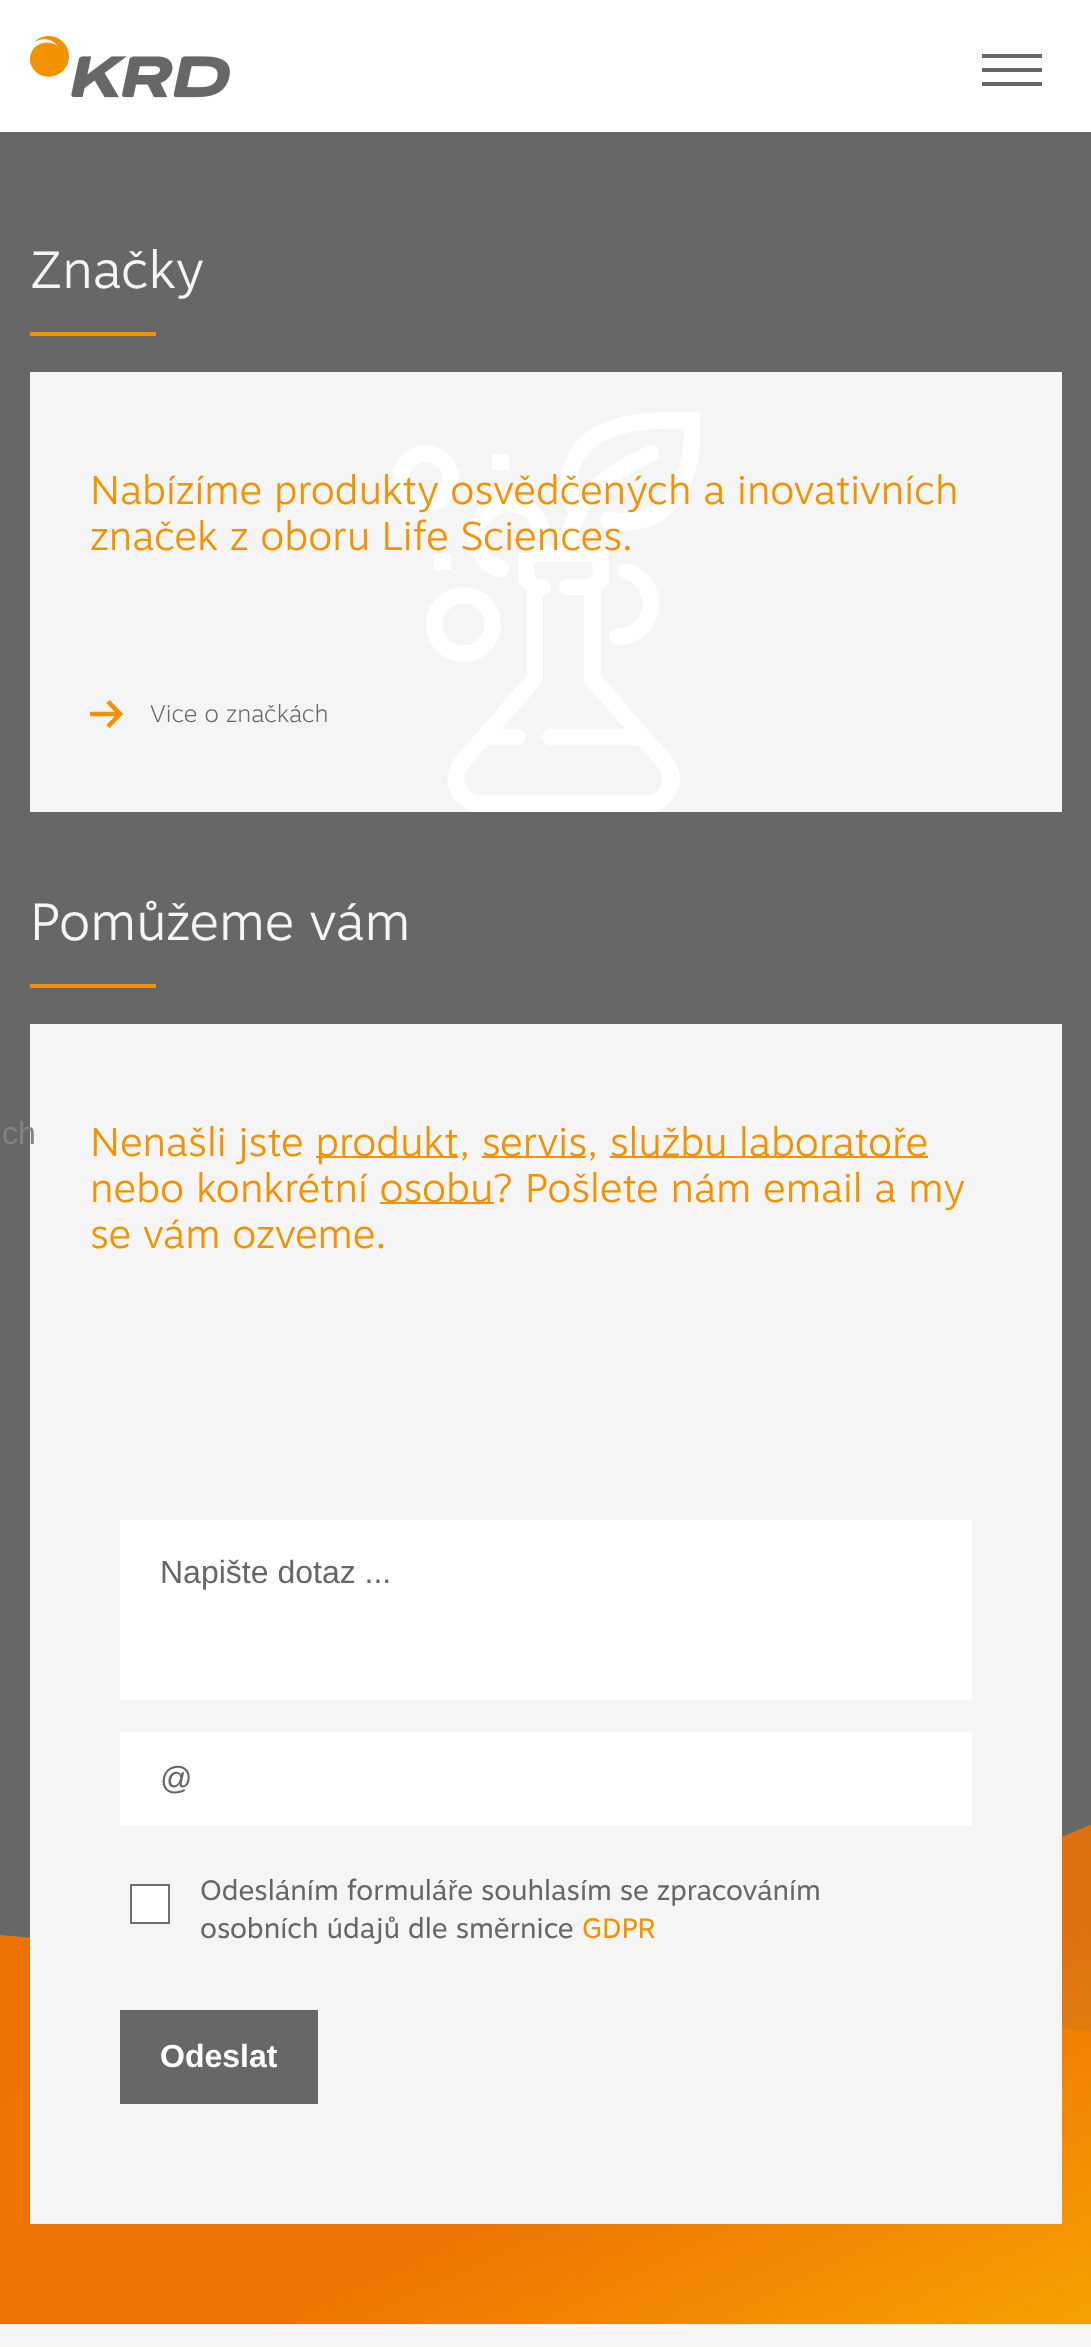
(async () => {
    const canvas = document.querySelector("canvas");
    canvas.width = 1091;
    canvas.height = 2347;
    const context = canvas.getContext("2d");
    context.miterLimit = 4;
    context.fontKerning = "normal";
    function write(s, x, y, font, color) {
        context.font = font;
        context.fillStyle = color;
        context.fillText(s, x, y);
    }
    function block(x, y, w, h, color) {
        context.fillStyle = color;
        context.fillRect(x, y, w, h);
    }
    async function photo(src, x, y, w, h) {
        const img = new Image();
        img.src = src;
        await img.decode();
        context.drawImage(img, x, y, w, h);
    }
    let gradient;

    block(0, 0, 1091, 2347, "rgb(103, 103, 103)");
    block(0, 0, 1091, 132, "rgb(255, 255, 255)");
    await photo("media/1.png", 30, 36, 200, 62);
    block(982, 68, 60, 4, "rgb(103, 103, 103)");
    block(982, 54, 60, 4, "rgb(103, 103, 103)");
    block(982, 82, 60, 4, "rgb(103, 103, 103)");
    gradient = context.createLinearGradient(29, 1984, 813, 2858);
    gradient.addColorStop(0, "rgb(238, 114, 3)");
    gradient.addColorStop(0.49, "rgb(238, 115, 3)");
    gradient.addColorStop(1, "rgb(249, 175, 0)");
    context.fillStyle = gradient;
    context.beginPath();
    context.moveTo(0, 1935);
    context.lineTo(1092, 2031);
    context.lineTo(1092, 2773);
    context.lineTo(0, 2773);
    context.closePath();
    context.fill();
    gradient = context.createLinearGradient(746, 2079, 941, 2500);
    gradient.addColorStop(0, "rgba(238, 114, 3, 0.88)");
    gradient.addColorStop(1, "rgba(249, 175, 0, 0.88)");
    context.fillStyle = gradient;
    context.beginPath();
    context.moveTo(0, 2290);
    context.lineTo(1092, 1824);
    context.lineTo(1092, 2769);
    context.lineTo(0, 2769);
    context.closePath();
    context.fill();
    block(30, 1024, 1032, 1200, "rgb(245, 245, 245)");
    write("ch", 2, 1144, "32px Liberation Sans", "rgb(131, 131, 131)");
    write("Značky", 30, 288, "300 52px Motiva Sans", "rgb(245, 245, 245)");
    block(30, 332, 126, 4, "rgb(243, 146, 0)");
    block(30, 372, 1032, 440, "rgb(245, 245, 245)");
    await photo("media/2.png", 392, 412, 308, 400);
    write("Nabízíme produkty osvědčených a inovativních", 90, 504, "300 40px Motiva Sans", "rgb(243, 146, 0)");
    write("značek z oboru Life Sciences.", 90, 550, "300 40px Motiva Sans", "rgb(243, 146, 0)");
    context.beginPath();
    context.moveTo(108, 701.5);
    context.lineTo(120, 714);
    context.lineTo(108, 726.5);
    context.moveTo(120, 714);
    context.lineTo(90, 714);
    context.strokeStyle = "rgb(243, 146, 0)";
    context.lineWidth = 4.6;
    context.stroke();
    write("Vice o značkách", 150, 722, "100 24px Motiva Sans", "rgb(103, 103, 103)");
    write("Pomůžeme vám", 30, 940, "300 52px Motiva Sans", "rgb(245, 245, 245)");
    block(30, 984, 126, 4, "rgb(243, 146, 0)");
    write("Nenašli jste produkt", 90, 1156, "300 40px Motiva Sans", "rgb(243, 146, 0)");
    write(", servis", 459, 1156, "300 40px Motiva Sans", "rgb(243, 146, 0)");
    write(", službu laboratoře", 587, 1156, "300 40px Motiva Sans", "rgb(243, 146, 0)");
    block(316, 1156, 142, 2, "rgb(243, 146, 0)");
    block(482, 1156, 104, 2, "rgb(243, 146, 0)");
    block(610, 1156, 318, 2, "rgb(243, 146, 0)");
    write("nebo konkrétní osobu", 90, 1202, "300 40px Motiva Sans", "rgb(243, 146, 0)");
    write("? Pošlete nám email a my", 493, 1202, "300 40px Motiva Sans", "rgb(243, 146, 0)");
    block(380, 1202, 114, 2, "rgb(243, 146, 0)");
    write("se vám ozveme.", 90, 1248, "300 40px Motiva Sans", "rgb(243, 146, 0)");
    block(120, 1520, 852, 180, "rgb(255, 255, 255)");
    write("Napište dotaz ...", 160, 1583, "32px Liberation Sans", "rgb(103, 103, 103)");
    block(120, 1732, 852, 94, "rgb(255, 255, 255)");
    write("@", 160, 1789, "32px Liberation Sans", "rgb(103, 103, 103)");
    context.fillStyle = "rgb(255, 255, 255)";
    context.beginPath();
    context.rect(131, 1885, 38, 38);
    context.fill();
    context.strokeStyle = "rgb(112, 112, 112)";
    context.lineWidth = 2;
    context.stroke();
    write("Odesláním formuláře souhlasím se zpracováním", 200, 1900, "28px Motiva Sans", "rgb(103, 103, 103)");
    write("osobních údajů dle směrnice", 200, 1938, "28px Motiva Sans", "rgb(103, 103, 103)");
    write("GDPR", 582, 1938, "28px Motiva Sans", "rgb(243, 146, 0)");
    block(120, 2010, 198, 94, "rgb(103, 103, 103)");
    write("Odeslat", 160, 2067, "bold 32px Liberation Sans", "rgb(255, 255, 255)");
    block(0, 2324, 1091, 23, "rgb(245, 245, 245)");
})();
